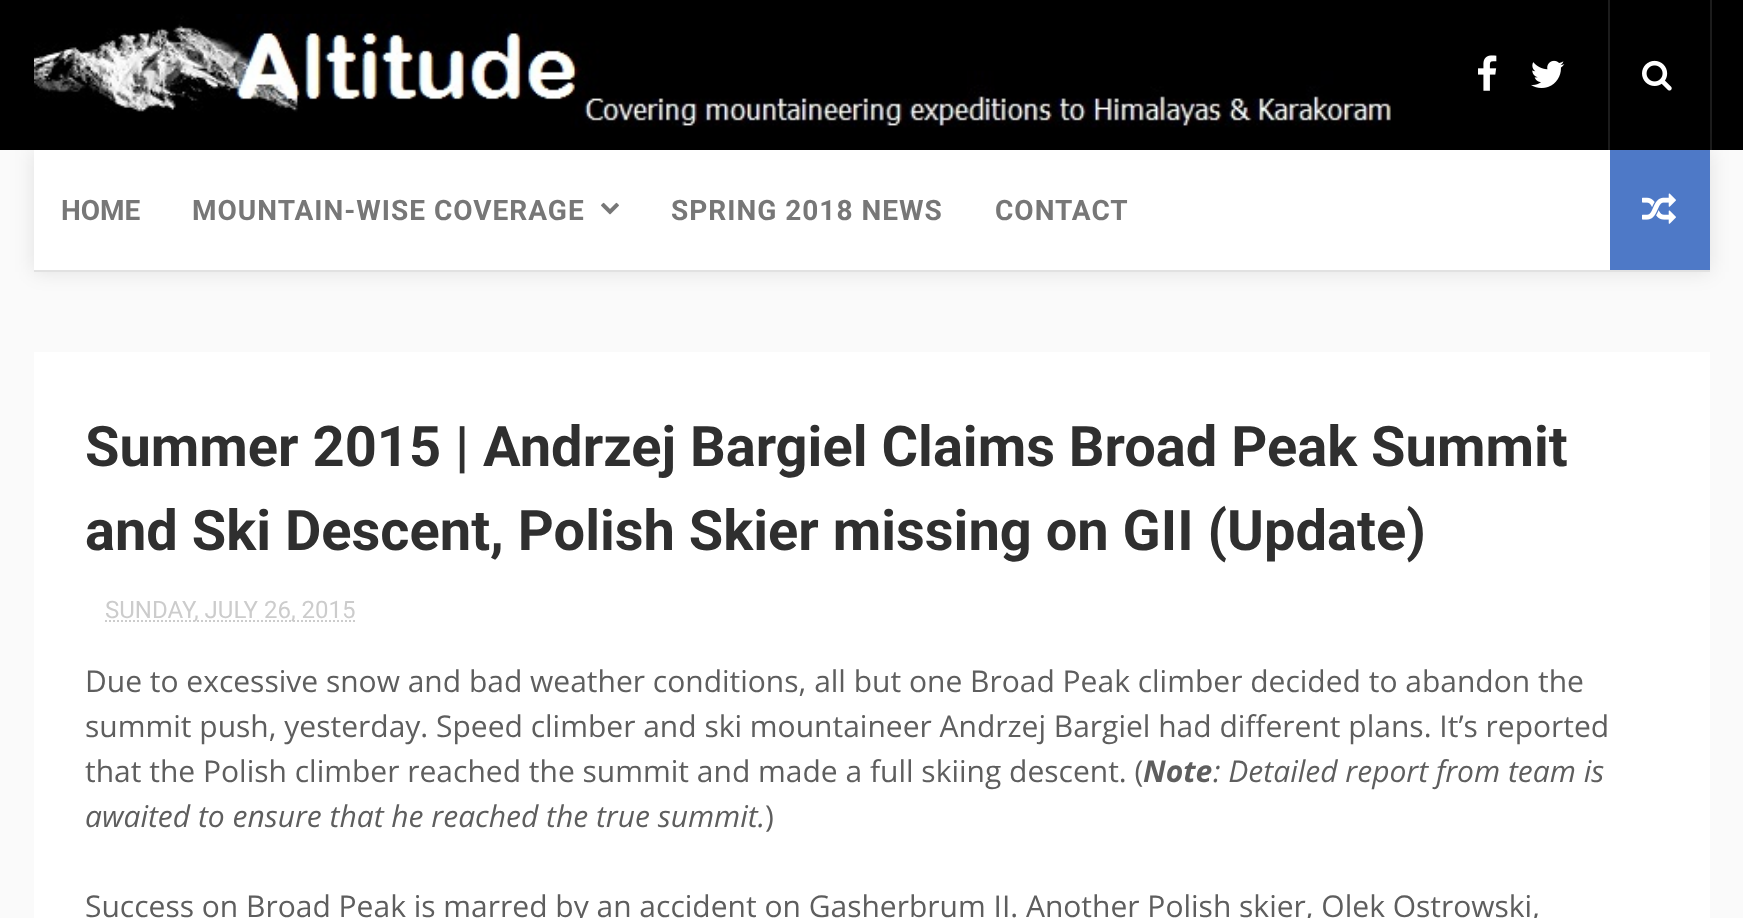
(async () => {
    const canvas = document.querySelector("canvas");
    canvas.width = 1743;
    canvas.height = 918;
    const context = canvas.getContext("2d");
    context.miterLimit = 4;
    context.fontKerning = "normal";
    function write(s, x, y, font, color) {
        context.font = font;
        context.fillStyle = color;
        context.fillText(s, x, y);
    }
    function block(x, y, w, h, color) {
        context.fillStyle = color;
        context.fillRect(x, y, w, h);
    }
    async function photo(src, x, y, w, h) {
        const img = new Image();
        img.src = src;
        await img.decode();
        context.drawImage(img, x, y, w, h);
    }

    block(0, 0, 1743, 918, "rgb(250, 250, 250)");
    block(0, 0, 1743, 150, "rgb(0, 0, 0)");
    block(1608, 0, 2, 150, "rgb(28, 28, 28)");
    await photo("media/1.png", 34, 14, 1357, 114);
    await photo("media/2.png", 1478, 55, 19, 36);
    await photo("media/3.png", 1531, 60, 34, 28);
    block(1710, 0, 2, 150, "rgb(28, 28, 28)");
    await photo("media/4.png", 1642, 60, 30, 31);
    context.fillStyle = "rgba(0, 0, 0, 0.1)";
    context.filter = "blur(10px)";
    context.beginPath();
    context.rect(34, 150, 1676, 122);
    context.fill();
    context.filter = "none";
    block(34, 270, 1676, 2, "rgb(225, 225, 225)");
    block(34, 150, 1576, 120, "rgb(255, 255, 255)");
    write("HOME", 61, 220, "bold 28px Roboto", "rgb(119, 119, 119)");
    context.letterSpacing = "1px";
    write("MOUNTAIN-WISE COVERAGE", 192, 220, "bold 28px Roboto", "rgb(119, 119, 119)");
    await photo("media/5.png", 601, 202, 18, 13);
    write("SPRING 2018 NEWS", 671, 220, "bold 28px Roboto", "rgb(119, 119, 119)");
    write("CONTACT", 995, 220, "bold 28px Roboto", "rgb(119, 119, 119)");
    block(1610, 150, 100, 120, "rgb(78, 121, 199)");
    await photo("media/6.png", 1642, 193, 34, 31);
    block(34, 352, 1676, 566, "rgb(255, 255, 255)");
    context.letterSpacing = "0px";
    write("Summer 2015 | Andrzej Bargiel Claims Broad Peak Summit", 85, 466, "bold 56px Roboto", "rgb(47, 47, 47)");
    write("and Ski Descent, Polish Skier missing on GII (Update)", 85, 550, "bold 56px Roboto", "rgb(47, 47, 47)");
    context.beginPath();
    context.moveTo(105, 621);
    context.lineTo(355.5, 621);
    context.strokeStyle = "rgb(204, 204, 204)";
    context.lineWidth = 2;
    context.setLineDash([2, 2]);
    context.stroke();
    write("SUNDAY, JULY 26, 2015", 105, 618, "24px Roboto", "rgb(204, 204, 204)");
    write("Due to excessive snow and bad weather conditions, all but one Broad Peak climber decided to abandon the", 85, 692, "30px Open Sans", "rgb(94, 94, 94)");
    write("summit push, yesterday. Speed climber and ski mountaineer Andrzej Bargiel had different plans. It’s reported", 85, 737, "30px Open Sans", "rgb(94, 94, 94)");
    write("that the Polish climber reached the summit and made a full skiing descent. (", 85, 782, "30px Open Sans", "rgb(94, 94, 94)");
    write("Note", 1143, 782, "italic bold 30px Open Sans", "rgb(94, 94, 94)");
    write(": Detailed report from team is", 1213, 782, "italic 30px Open Sans", "rgb(94, 94, 94)");
    write("awaited to ensure that he reached the true summit.", 85, 827, "italic 30px Open Sans", "rgb(94, 94, 94)");
    write(")", 765, 827, "30px Open Sans", "rgb(94, 94, 94)");
    write("Success on Broad Peak is marred by an accident on Gasherbrum II. Another Polish skier, Olek Ostrowski,", 85, 917, "30px Open Sans", "rgb(94, 94, 94)");
})();
